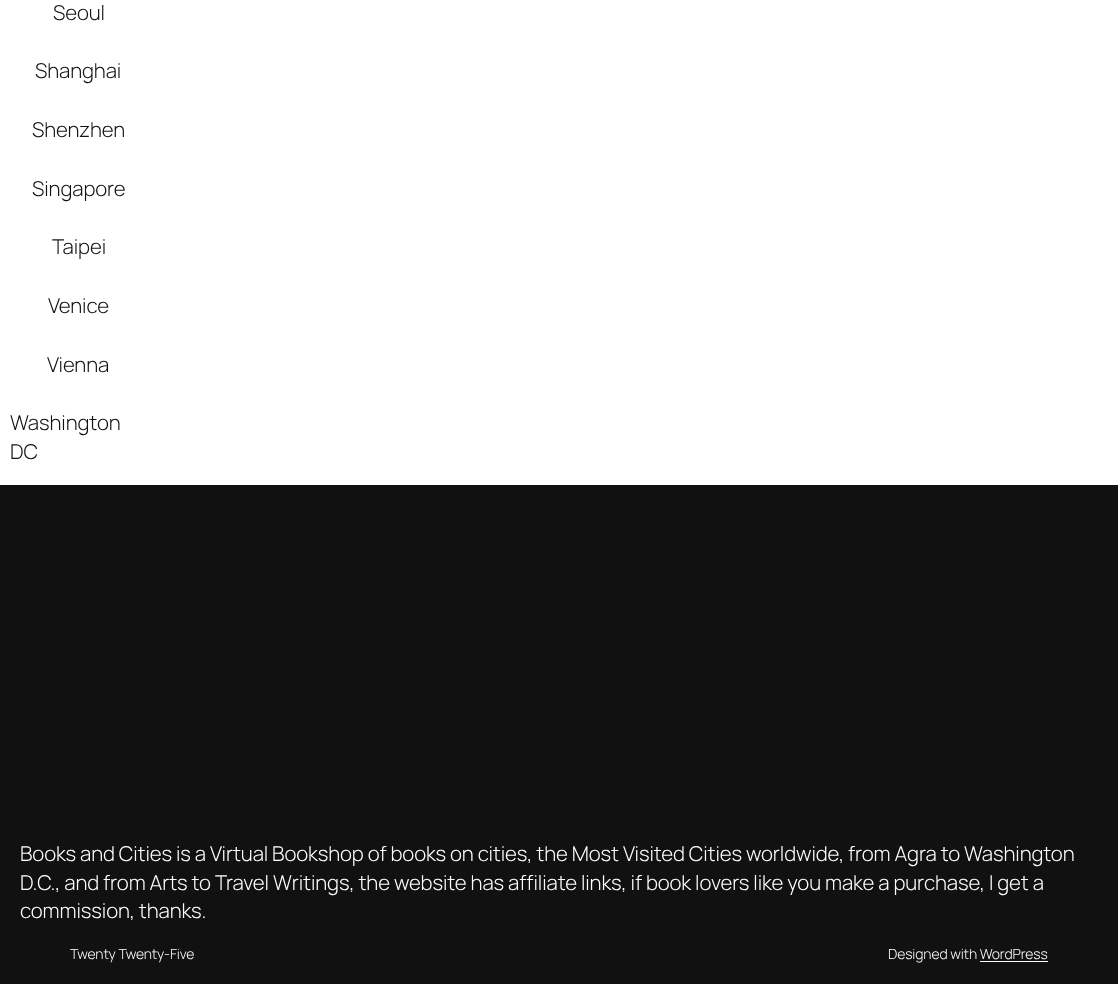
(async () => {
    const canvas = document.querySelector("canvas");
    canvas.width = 1118;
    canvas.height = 984;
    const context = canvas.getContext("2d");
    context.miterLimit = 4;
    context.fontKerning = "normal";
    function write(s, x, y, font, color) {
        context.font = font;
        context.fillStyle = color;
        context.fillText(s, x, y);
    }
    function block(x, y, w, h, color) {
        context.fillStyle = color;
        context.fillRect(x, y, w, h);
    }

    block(0, 0, 1118, 984, "rgb(255, 255, 255)");
    context.letterSpacing = "-0.1px";
    write("Seoul", 53, 20, "300 20.47px Manrope", "rgb(17, 17, 17)");
    write("Shanghai", 35, 78, "300 20.47px Manrope", "rgb(17, 17, 17)");
    write("Shenzhen", 32, 137, "300 20.47px Manrope", "rgb(17, 17, 17)");
    write("Singapore", 32, 196, "300 20.47px Manrope", "rgb(17, 17, 17)");
    write("Taipei", 52, 254, "300 20.47px Manrope", "rgb(17, 17, 17)");
    write("Venice", 48, 313, "300 20.47px Manrope", "rgb(17, 17, 17)");
    write("Vienna", 47, 372, "300 20.47px Manrope", "rgb(17, 17, 17)");
    write("Washington", 10, 430, "300 20.47px Manrope", "rgb(17, 17, 17)");
    write("DC", 10, 459, "300 20.47px Manrope", "rgb(17, 17, 17)");
    block(0, 485, 1118, 499, "rgb(17, 17, 17)");
    write("Books and Cities is a Virtual Bookshop of books on cities, the Most Visited Cities worldwide, from Agra to Washington", 20, 861, "300 20.47px Manrope", "rgb(255, 255, 255)");
    write("D.C., and from Arts to Travel Writings, the website has affiliate links, if book lovers like you make a purchase, I get a", 20, 890, "300 20.47px Manrope", "rgb(255, 255, 255)");
    write("commission, thanks.", 20, 918, "300 20.47px Manrope", "rgb(255, 255, 255)");
    write("Twenty Twenty-Five", 70, 959, "300 14px Manrope", "rgb(255, 255, 255)");
    write("Designed with WordPress", 888, 959, "300 14px Manrope", "rgb(255, 255, 255)");
    block(980, 961, 68, 1, "rgb(255, 255, 255)");
})();
